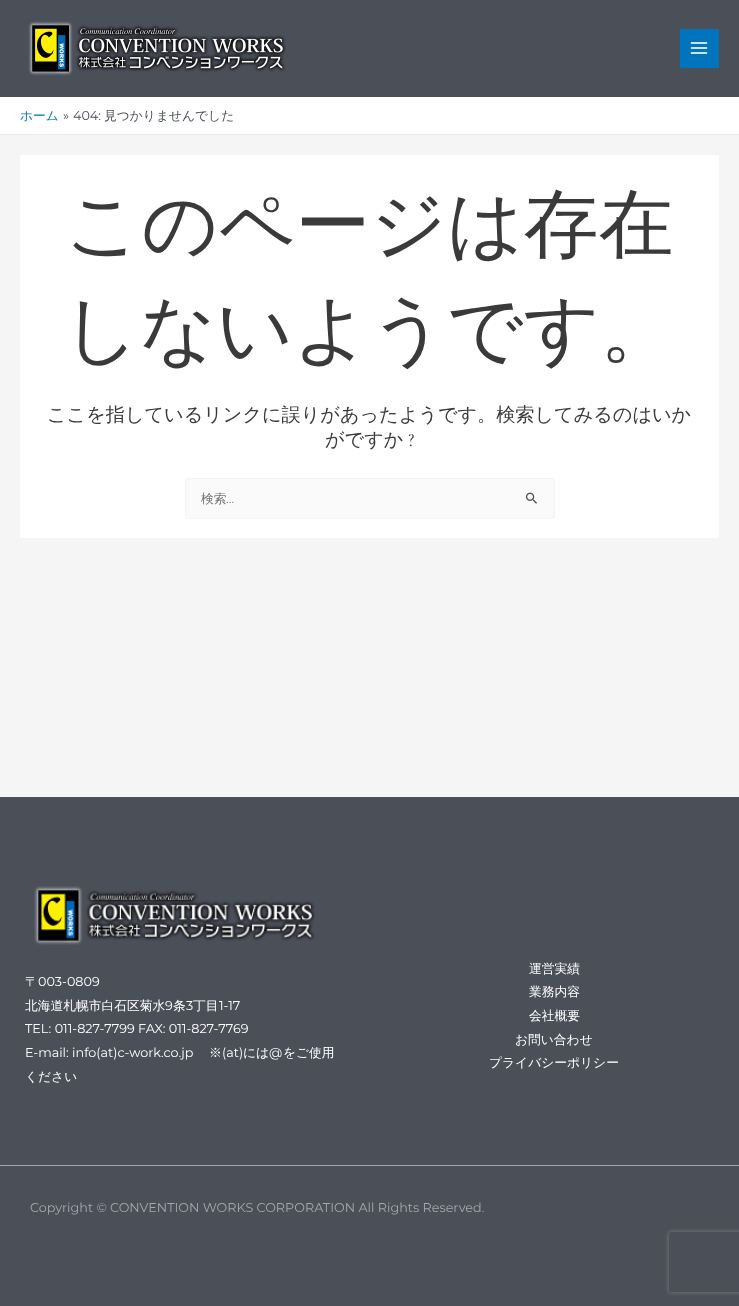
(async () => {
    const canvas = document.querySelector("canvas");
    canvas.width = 739;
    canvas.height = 1306;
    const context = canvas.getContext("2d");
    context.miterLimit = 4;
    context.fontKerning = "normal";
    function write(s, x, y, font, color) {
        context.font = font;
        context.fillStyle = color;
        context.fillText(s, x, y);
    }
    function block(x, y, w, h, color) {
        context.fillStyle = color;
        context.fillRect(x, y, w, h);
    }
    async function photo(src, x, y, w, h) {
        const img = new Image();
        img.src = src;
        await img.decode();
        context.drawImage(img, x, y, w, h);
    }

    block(0, 0, 739, 1306, "rgb(245, 245, 245)");
    block(0, 0, 739, 97, "rgb(75, 79, 88)");
    await photo("media/1.png", 28, 21, 258, 55);
    block(680, 29, 39, 39, "rgb(2, 116, 190)");
    await photo("media/2.png", 690, 42, 18, 12);
    block(0, 97, 739, 37, "rgb(255, 255, 255)");
    block(0, 134, 739, 1, "rgb(234, 234, 234)");
    write("ホーム", 20, 120, "500 12.75px WenQuanYi Zen Hei", "rgb(2, 116, 190)");
    write("»", 63, 120, "100 12.75px Montserrat", "rgb(75, 79, 88)");
    write("404:", 73, 120, "100 12.75px Montserrat", "rgb(75, 79, 88)");
    write("見つかりませんでした", 104, 120, "500 12.75px WenQuanYi Zen Hei", "rgb(75, 79, 88)");
    block(20, 155, 699, 383, "rgb(255, 255, 255)");
    write("このページは存在", 65, 250, "500 75px WenQuanYi Zen Hei", "rgb(58, 58, 58)");
    write("しないようです。", 63, 355, "500 75px WenQuanYi Zen Hei", "rgb(58, 58, 58)");
    write("ここを指しているリンクに誤りがあったようです。検索してみるのはいか", 47, 421, "500 19.15px WenQuanYi Zen Hei", "rgb(58, 58, 58)");
    write("がですか", 325, 446, "500 19.15px WenQuanYi Zen Hei", "rgb(58, 58, 58)");
    write("?", 408, 446, "300 19.15px Cormorant", "rgb(58, 58, 58)");
    context.fillStyle = "rgb(250, 250, 250)";
    context.beginPath();
    context.roundRect(185.5, 478.5, 369, 40, 1.5);
    context.fill();
    context.strokeStyle = "rgb(242, 245, 247)";
    context.stroke();
    write("検索", 201, 503, "500 12.75px WenQuanYi Zen Hei", "rgb(117, 117, 117)");
    write("...", 226, 503, "100 12.75px Montserrat", "rgb(117, 117, 117)");
    await photo("media/3.png", 525, 492, 12, 12);
    block(0, 797, 739, 368, "rgb(75, 79, 88)");
    await photo("media/4.png", 34, 886, 281, 59);
    write("〒", 25, 986, "500 12.75px WenQuanYi Zen Hei", "rgb(255, 255, 255)");
    write("003-0809", 38, 986, "100 12.75px Montserrat", "rgb(255, 255, 255)");
    write("北海道札幌市白石区菊水", 25, 1010, "500 12.75px WenQuanYi Zen Hei", "rgb(255, 255, 255)");
    write("9", 165, 1010, "100 12.75px Montserrat", "rgb(255, 255, 255)");
    write("条", 173, 1010, "500 12.75px WenQuanYi Zen Hei", "rgb(255, 255, 255)");
    write("3", 186, 1010, "100 12.75px Montserrat", "rgb(255, 255, 255)");
    write("丁目", 193, 1010, "500 12.75px WenQuanYi Zen Hei", "rgb(255, 255, 255)");
    write("1-17", 219, 1010, "100 12.75px Montserrat", "rgb(255, 255, 255)");
    write("TEL: 011-827-7799 FAX: 011-827-7769", 25, 1033, "100 12.75px Montserrat", "rgb(255, 255, 255)");
    write("E-mail: info(at)c-work.co.jp", 25, 1057, "100 12.75px Montserrat", "rgb(255, 255, 255)");
    write("※", 209, 1057, "500 12.75px WenQuanYi Zen Hei", "rgb(255, 255, 255)");
    write("(at)", 222, 1057, "100 12.75px Montserrat", "rgb(255, 255, 255)");
    write("には", 243, 1057, "500 12.75px WenQuanYi Zen Hei", "rgb(255, 255, 255)");
    write("@", 269, 1057, "100 12.75px Montserrat", "rgb(255, 255, 255)");
    write("をご使用", 283, 1057, "500 12.75px WenQuanYi Zen Hei", "rgb(255, 255, 255)");
    write("ください", 25, 1081, "500 12.75px WenQuanYi Zen Hei", "rgb(255, 255, 255)");
    write("運営実績", 529, 973, "500 12.75px WenQuanYi Zen Hei", "rgb(255, 255, 255)");
    write("業務内容", 529, 996, "500 12.75px WenQuanYi Zen Hei", "rgb(255, 255, 255)");
    write("会社概要", 529, 1020, "500 12.75px WenQuanYi Zen Hei", "rgb(255, 255, 255)");
    write("お問い合わせ", 515, 1044, "500 12.75px WenQuanYi Zen Hei", "rgb(255, 255, 255)");
    write("プライバシーポリシー", 489, 1067, "500 12.75px WenQuanYi Zen Hei", "rgb(255, 255, 255)");
    block(0, 1166, 739, 140, "rgb(75, 79, 88)");
    block(0, 1165, 739, 1, "rgb(165, 167, 172)");
    write("Copyright © CONVENTION WORKS CORPORATION All Rights Reserved.", 30, 1212, "100 12.75px Montserrat", "rgb(165, 167, 172)");
    context.save();
    context.beginPath();
    context.moveTo(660, 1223);
    context.lineTo(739, 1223);
    context.lineTo(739, 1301);
    context.lineTo(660, 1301);
    context.closePath();
    context.moveTo(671, 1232);
    context.lineTo(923, 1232);
    context.bezierCurveTo(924, 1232, 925, 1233, 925, 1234);
    context.lineTo(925, 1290);
    context.bezierCurveTo(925, 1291, 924, 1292, 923, 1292);
    context.lineTo(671, 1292);
    context.bezierCurveTo(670, 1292, 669, 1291, 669, 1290);
    context.lineTo(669, 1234);
    context.bezierCurveTo(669, 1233, 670, 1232, 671, 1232);
    context.closePath();
    context.clip("evenodd");
    context.fillStyle = "rgb(128, 128, 128)";
    context.filter = "blur(2.5px)";
    context.beginPath();
    context.roundRect(669, 1232, 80, 60, 2);
    context.fill();
    context.filter = "none";
    context.restore();
})();
